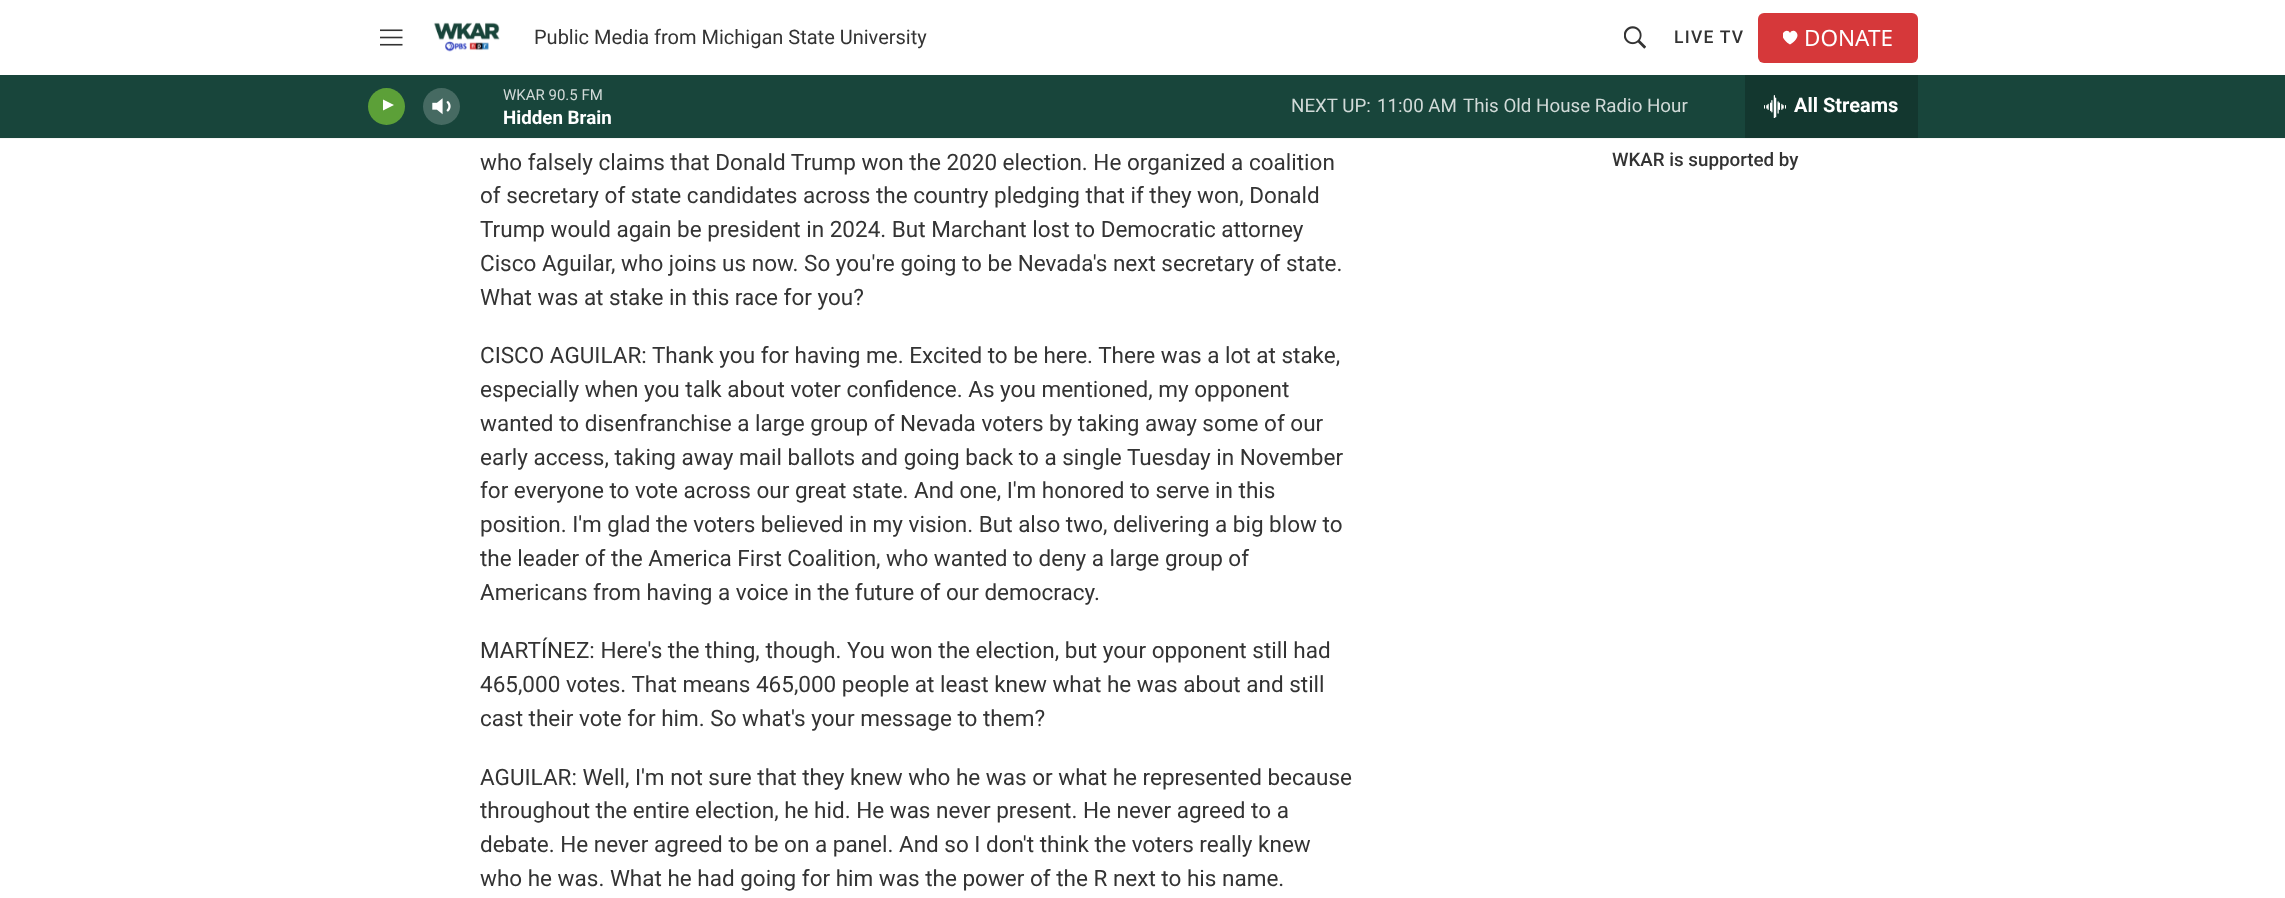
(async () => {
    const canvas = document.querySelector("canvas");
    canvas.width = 2285;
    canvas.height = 898;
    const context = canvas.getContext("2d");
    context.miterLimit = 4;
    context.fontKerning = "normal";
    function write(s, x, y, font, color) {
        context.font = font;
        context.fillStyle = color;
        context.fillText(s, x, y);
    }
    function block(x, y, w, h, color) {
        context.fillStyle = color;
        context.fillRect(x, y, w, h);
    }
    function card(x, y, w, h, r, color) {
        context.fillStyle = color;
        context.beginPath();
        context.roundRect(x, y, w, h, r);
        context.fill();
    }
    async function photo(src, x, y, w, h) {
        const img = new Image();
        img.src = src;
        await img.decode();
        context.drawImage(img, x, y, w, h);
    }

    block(0, 0, 2285, 898, "rgb(255, 255, 255)");
    block(0, 138, 2285, 1, "rgb(245, 245, 245)");
    await photo("media/1.png", 380, 29, 23, 17);
    await photo("media/2.png", 433, 22, 67, 30);
    write("Public Media from Michigan State University", 534, 44, "20px Roboto", "rgb(51, 51, 51)");
    await photo("media/3.png", 1624, 26, 22, 23);
    context.letterSpacing = "1.25px";
    write("LIVE TV", 1674, 43, "500 17.5px Roboto", "rgb(51, 51, 51)");
    card(1758, 13, 160, 50, 6, "rgb(214, 56, 58)");
    context.save();
    context.beginPath();
    context.rect(1783, 30, 15, 15);
    context.clip();
    context.fillStyle = "rgb(255, 255, 255)";
    context.beginPath();
    context.moveTo(1790, 33);
    context.bezierCurveTo(1787.5, 26.5, 1774.5, 35, 1790, 44.5);
    context.bezierCurveTo(1805.5, 35, 1792.5, 26.5, 1790, 33);
    context.closePath();
    context.fill();
    context.restore();
    context.letterSpacing = "0px";
    write("DONATE", 1804, 46, "22.5px Noto Sans", "rgb(255, 255, 255)");
    block(0, 75, 2285, 63, "rgb(24, 69, 59)");
    context.fillStyle = "rgb(92, 160, 56)";
    context.beginPath();
    context.arc(386.5, 106.5, 18.5, 0, Math.PI * 2);
    context.fill();
    context.save();
    context.beginPath();
    context.rect(383, 98, 14, 18);
    context.clip();
    context.fillStyle = "rgb(255, 255, 255)";
    context.beginPath();
    context.moveTo(382, 99);
    context.lineTo(394, 105);
    context.lineTo(382, 111);
    context.closePath();
    context.fill();
    context.restore();
    await photo("media/4.png", 432, 98, 19, 17);
    context.fillStyle = "rgba(255, 255, 255, 0.2)";
    context.beginPath();
    context.arc(441.5, 106.5, 18.5, 0, Math.PI * 2);
    context.fill();
    write("WKAR 90.5 FM", 503, 100, "15px Roboto", "rgb(209, 218, 216)");
    write("Hidden Brain", 503, 124, "bold 18.75px Roboto", "rgb(255, 255, 255)");
    write("NEXT UP:", 1291, 112, "18.75px Roboto", "rgb(209, 218, 216)");
    write("11:00 AM", 1377, 112, "18.75px Roboto", "rgb(209, 218, 216)");
    write("This Old House Radio Hour", 1463, 112, "18.75px Roboto", "rgb(209, 218, 216)");
    block(1745, 75, 173, 63, "rgb(19, 55, 47)");
    await photo("media/5.png", 1764, 95, 22, 23);
    write("All Streams", 1794, 112, "bold 20px Roboto", "rgb(255, 255, 255)");
    write("who falsely claims that Donald Trump won the 2020 election. He organized a coalition", 480, 170, "22.5px Roboto", "rgb(51, 51, 51)");
    write("of secretary of state candidates across the country pledging that if they won, Donald", 480, 203, "22.5px Roboto", "rgb(51, 51, 51)");
    write("Trump would again be president in 2024. But Marchant lost to Democratic attorney", 480, 237, "22.5px Roboto", "rgb(51, 51, 51)");
    write("Cisco Aguilar, who joins us now. So you're going to be Nevada's next secretary of state.", 480, 271, "22.5px Roboto", "rgb(51, 51, 51)");
    write("What was at stake in this race for you?", 480, 305, "22.5px Roboto", "rgb(51, 51, 51)");
    write("CISCO AGUILAR: Thank you for having me. Excited to be here. There was a lot at stake,", 480, 363, "22.5px Roboto", "rgb(51, 51, 51)");
    write("especially when you talk about voter confidence. As you mentioned, my opponent", 480, 397, "22.5px Roboto", "rgb(51, 51, 51)");
    write("wanted to disenfranchise a large group of Nevada voters by taking away some of our", 480, 431, "22.5px Roboto", "rgb(51, 51, 51)");
    write("early access, taking away mail ballots and going back to a single Tuesday in November", 480, 465, "22.5px Roboto", "rgb(51, 51, 51)");
    write("for everyone to vote across our great state. And one, I'm honored to serve in this", 480, 498, "22.5px Roboto", "rgb(51, 51, 51)");
    write("position. I'm glad the voters believed in my vision. But also two, delivering a big blow to", 480, 532, "22.5px Roboto", "rgb(51, 51, 51)");
    write("the leader of the America First Coalition, who wanted to deny a large group of", 480, 566, "22.5px Roboto", "rgb(51, 51, 51)");
    write("Americans from having a voice in the future of our democracy.", 480, 600, "22.5px Roboto", "rgb(51, 51, 51)");
    write("MARTÍNEZ: Here's the thing, though. You won the election, but your opponent still had", 480, 658, "22.5px Roboto", "rgb(51, 51, 51)");
    write("465,000 votes. That means 465,000 people at least knew what he was about and still", 480, 692, "22.5px Roboto", "rgb(51, 51, 51)");
    write("cast their vote for him. So what's your message to them?", 480, 726, "22.5px Roboto", "rgb(51, 51, 51)");
    write("AGUILAR: Well, I'm not sure that they knew who he was or what he represented because", 480, 785, "22.5px Roboto", "rgb(51, 51, 51)");
    write("throughout the entire election, he hid. He was never present. He never agreed to a", 480, 818, "22.5px Roboto", "rgb(51, 51, 51)");
    write("debate. He never agreed to be on a panel. And so I don't think the voters really knew", 480, 852, "22.5px Roboto", "rgb(51, 51, 51)");
    write("who he was. What he had going for him was the power of the R next to his name.", 480, 886, "22.5px Roboto", "rgb(51, 51, 51)");
    write("WKAR is supported by", 1612, 166, "500 18.75px Roboto", "rgb(51, 51, 51)");
})();
